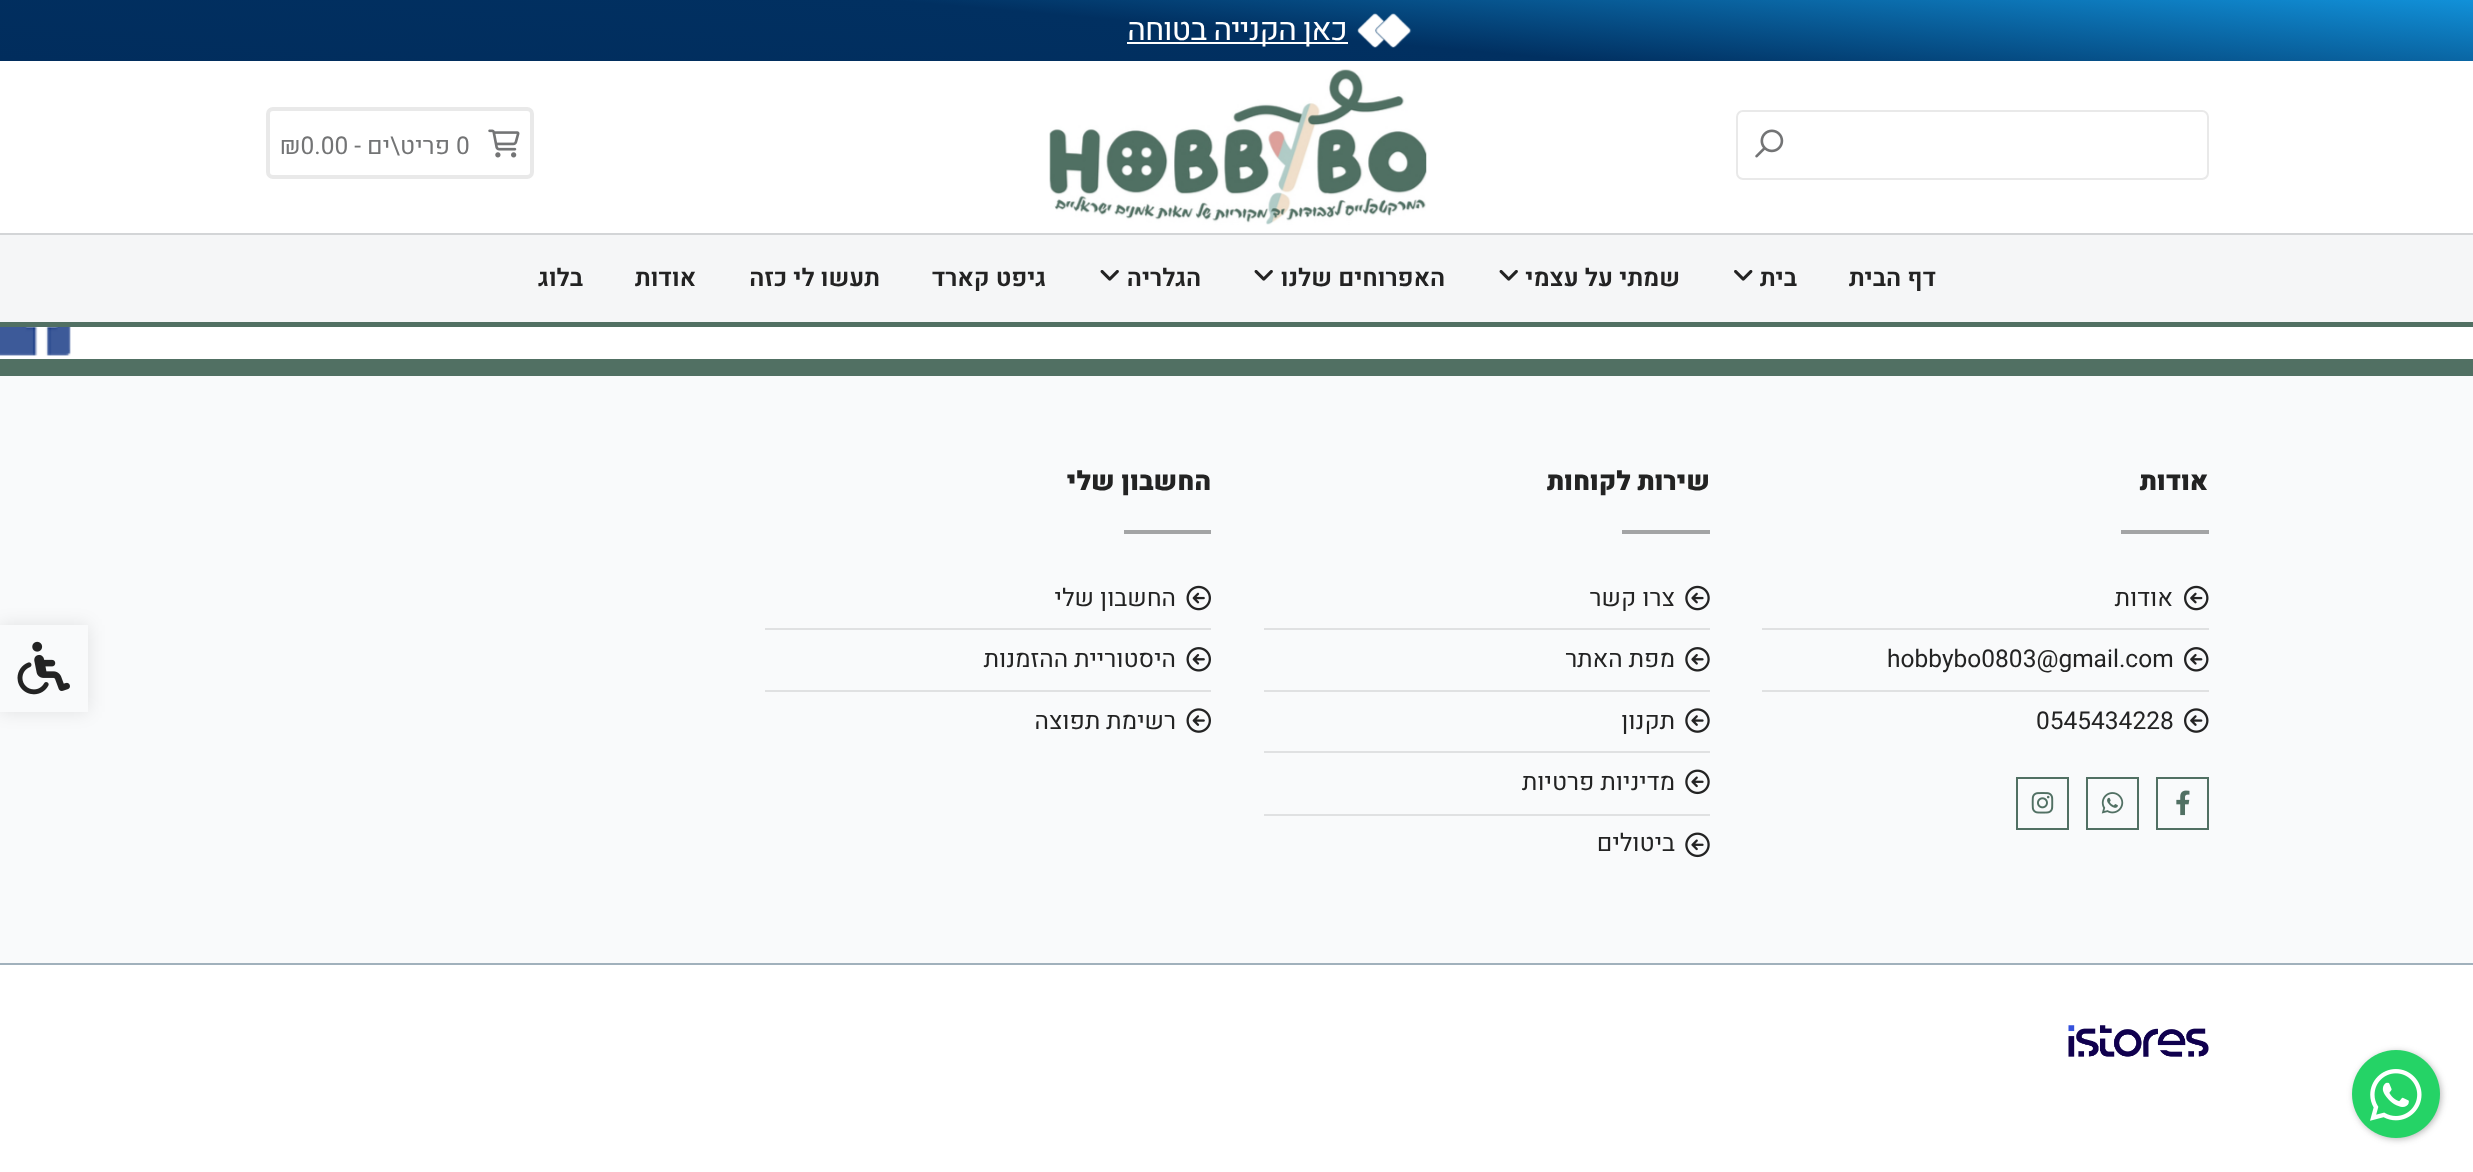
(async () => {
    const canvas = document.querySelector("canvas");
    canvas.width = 2473;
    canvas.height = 1172;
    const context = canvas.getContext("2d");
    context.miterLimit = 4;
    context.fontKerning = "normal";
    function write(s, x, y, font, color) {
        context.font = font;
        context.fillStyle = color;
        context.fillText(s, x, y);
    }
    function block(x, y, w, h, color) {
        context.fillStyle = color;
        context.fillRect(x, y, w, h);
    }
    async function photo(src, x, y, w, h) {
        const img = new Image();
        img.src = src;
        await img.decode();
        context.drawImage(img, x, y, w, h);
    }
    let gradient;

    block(0, 0, 2473, 1172, "rgb(255, 255, 255)");
    block(0, 322, 2473, 5, "rgb(81, 112, 99)");
    gradient = context.createLinearGradient(1225, 168, 1249, -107);
    gradient.addColorStop(0, "rgb(1, 45, 93)");
    gradient.addColorStop(0.5, "rgb(1, 48, 97)");
    gradient.addColorStop(1, "rgb(17, 145, 217)");
    context.fillStyle = gradient;
    context.fillRect(0, 0, 2473, 61);
    await photo("media/1.png", 1357, 13, 55, 35);
    block(1127, 42, 221, 2, "rgb(255, 255, 255)");
    context.letterSpacing = "-0.75px";
    context.direction = "rtl";
    write("כאן הקנייה בטוחה", 1347, 40, "31.5px Heebo", "rgb(255, 255, 255)");
    context.beginPath();
    context.roundRect(1737, 111, 471, 68, 6);
    context.strokeStyle = "rgb(233, 233, 233)";
    context.lineWidth = 2;
    context.stroke();
    await photo("media/2.png", 1755, 129, 29, 29);
    await photo("media/3.png", 1049, 69, 378, 156);
    context.beginPath();
    context.roundRect(268, 109, 264, 68, 5);
    context.lineWidth = 4;
    context.stroke();
    await photo("media/4.png", 488, 129, 32, 29);
    context.letterSpacing = "0px";
    context.direction = "ltr";
    write("0", 456, 154, "24.5px Heebo", "rgb(115, 116, 117)");
    context.direction = "rtl";
    write("פריט\\ים -", 450, 154, "24.5px Heebo", "rgb(115, 116, 117)");
    context.direction = "ltr";
    write("₪0.00", 280, 154, "24.5px Heebo", "rgb(115, 116, 117)");
    block(0, 235, 2473, 87, "rgb(245, 246, 247)");
    block(0, 233, 2473, 2, "rgb(211, 213, 215)");
    context.direction = "rtl";
    write("דף הבית", 1936, 286, "600 24.5px Heebo", "rgb(35, 35, 35)");
    write("בית", 1797, 286, "600 24.5px Heebo", "rgb(35, 35, 35)");
    await photo("media/5.png", 1734, 270, 19, 11);
    write("שמתי על עצמי", 1680, 286, "600 24.5px Heebo", "rgb(35, 35, 35)");
    await photo("media/6.png", 1499, 270, 19, 11);
    write("האפרוחים שלנו", 1445, 286, "600 24.5px Heebo", "rgb(35, 35, 35)");
    await photo("media/6.png", 1254, 270, 19, 11);
    write("הגלריה", 1201, 286, "600 24.5px Heebo", "rgb(35, 35, 35)");
    await photo("media/6.png", 1100, 270, 19, 11);
    write("גיפט קארד", 1046, 286, "600 24.5px Heebo", "rgb(35, 35, 35)");
    write("תעשו לי כזה", 880, 286, "600 24.5px Heebo", "rgb(35, 35, 35)");
    write("אודות", 696, 286, "600 24.5px Heebo", "rgb(35, 35, 35)");
    write("בלוג", 583, 286, "600 24.5px Heebo", "rgb(35, 35, 35)");
    await photo("media/7.png", 0, 327, 71, 29);
    block(0, 376, 2473, 587, "rgb(249, 250, 251)");
    block(0, 359, 2473, 17, "rgb(81, 112, 99)");
    write("אודות", 2208, 490, "900 26.25px Heebo", "rgb(35, 35, 35)");
    block(2121, 530, 88, 4, "rgb(163, 164, 165)");
    await photo("media/8.png", 2184, 585, 25, 26);
    write("אודות", 2173, 606, "24.5px Heebo", "rgb(35, 35, 35)");
    block(1762, 628, 447, 2, "rgb(224, 225, 226)");
    await photo("media/9.png", 2184, 647, 25, 25);
    context.direction = "ltr";
    write("hobbybo0803@gmail.com", 1887, 667, "24.5px Heebo", "rgb(35, 35, 35)");
    block(1762, 690, 447, 2, "rgb(224, 225, 226)");
    await photo("media/10.png", 2184, 708, 25, 25);
    write("0545434228", 2036, 729, "24.5px Heebo", "rgb(35, 35, 35)");
    context.strokeStyle = "rgb(81, 112, 99)";
    context.lineWidth = 2;
    context.strokeRect(2157, 778, 51, 51);
    await photo("media/11.png", 2176, 790, 14, 26);
    context.strokeRect(2087, 778, 51, 51);
    await photo("media/12.png", 2101, 792, 23, 22);
    context.strokeRect(2017, 778, 51, 51);
    await photo("media/13.png", 2031, 792, 23, 22);
    context.direction = "rtl";
    write("שירות לקוחות", 1710, 490, "900 26.25px Heebo", "rgb(35, 35, 35)");
    block(1622, 530, 88, 4, "rgb(163, 164, 165)");
    await photo("media/14.png", 1685, 585, 25, 26);
    write("צרו קשר", 1675, 606, "24.5px Heebo", "rgb(35, 35, 35)");
    block(1264, 628, 446, 2, "rgb(224, 225, 226)");
    await photo("media/15.png", 1685, 647, 25, 25);
    write("מפת האתר", 1675, 667, "24.5px Heebo", "rgb(35, 35, 35)");
    block(1264, 690, 446, 2, "rgb(224, 225, 226)");
    await photo("media/16.png", 1685, 708, 25, 25);
    write("תקנון", 1675, 729, "24.5px Heebo", "rgb(35, 35, 35)");
    block(1264, 751, 446, 2, "rgb(224, 225, 226)");
    await photo("media/17.png", 1685, 769, 25, 26);
    write("מדיניות פרטיות", 1675, 790, "24.5px Heebo", "rgb(35, 35, 35)");
    block(1264, 814, 446, 2, "rgb(224, 225, 226)");
    await photo("media/17.png", 1685, 832, 25, 26);
    write("ביטולים", 1675, 851, "24.5px Heebo", "rgb(35, 35, 35)");
    write("החשבון שלי", 1211, 490, "900 26.25px Heebo", "rgb(35, 35, 35)");
    block(1124, 530, 87, 4, "rgb(163, 164, 165)");
    await photo("media/18.png", 1186, 585, 25, 26);
    write("החשבון שלי", 1176, 606, "24.5px Heebo", "rgb(35, 35, 35)");
    block(765, 628, 446, 2, "rgb(224, 225, 226)");
    await photo("media/19.png", 1186, 647, 25, 25);
    write("היסטוריית ההזמנות", 1176, 667, "24.5px Heebo", "rgb(35, 35, 35)");
    block(765, 690, 446, 2, "rgb(224, 225, 226)");
    await photo("media/20.png", 1186, 708, 25, 25);
    write("רשימת תפוצה", 1176, 729, "24.5px Heebo", "rgb(35, 35, 35)");
    context.save();
    context.beginPath();
    context.moveTo(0, 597);
    context.lineTo(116, 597);
    context.lineTo(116, 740);
    context.lineTo(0, 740);
    context.closePath();
    context.moveTo(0, 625);
    context.lineTo(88, 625);
    context.lineTo(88, 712);
    context.lineTo(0, 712);
    context.closePath();
    context.clip("evenodd");
    context.fillStyle = "rgba(0, 0, 0, 0.1)";
    context.filter = "blur(9px)";
    context.beginPath();
    context.rect(0, 625, 88, 87);
    context.fill();
    context.filter = "none";
    context.restore();
    await photo("media/21.png", 17, 641, 53, 54);
    block(0, 963, 2473, 2, "rgb(161, 177, 188)");
    await photo("media/22.png", 2068, 1025, 141, 32);
    context.fillStyle = "rgba(60, 60, 60, 0.4)";
    context.filter = "blur(3.5px)";
    context.beginPath();
    context.roundRect(2354, 1052, 87, 87, 43.5);
    context.fill();
    context.filter = "none";
    await photo("media/23.png", 2352, 1050, 88, 88);
})();
